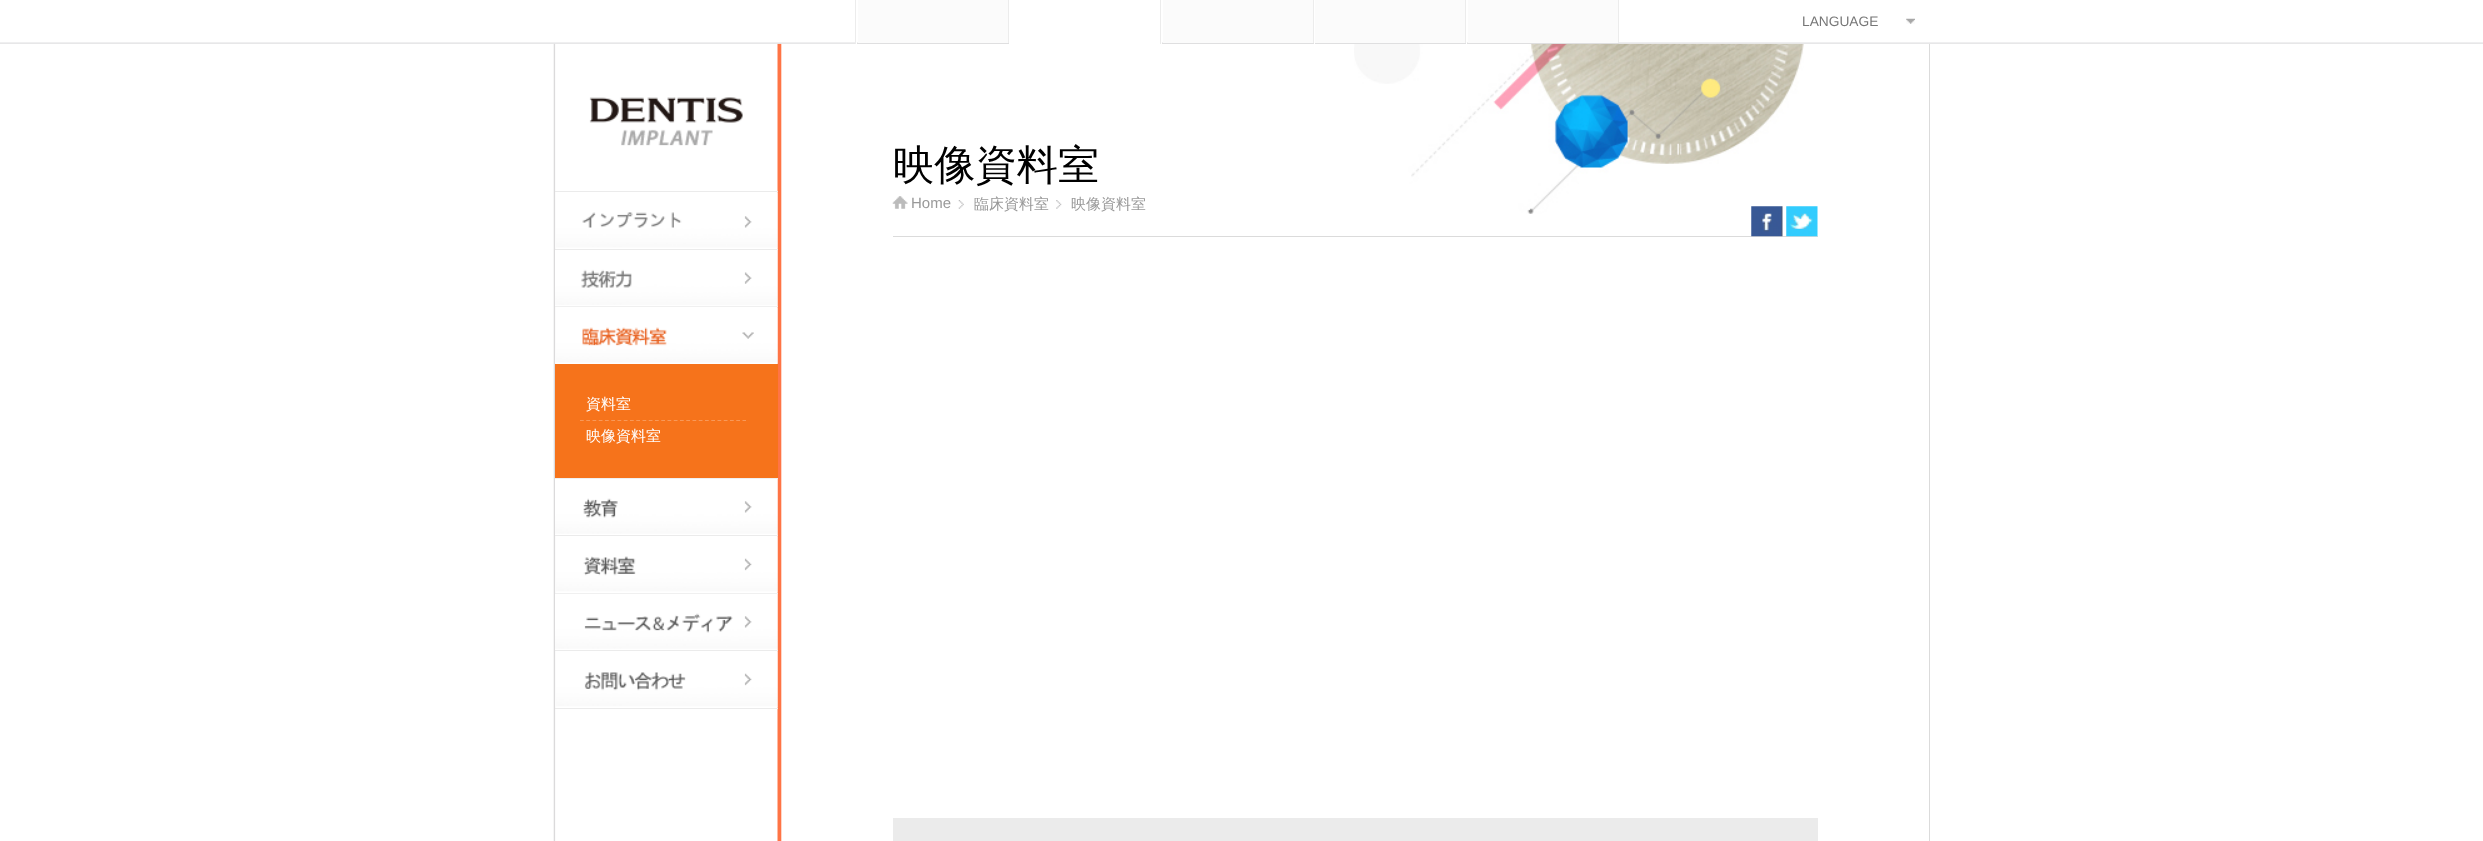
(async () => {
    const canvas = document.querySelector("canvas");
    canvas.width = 2483;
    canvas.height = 841;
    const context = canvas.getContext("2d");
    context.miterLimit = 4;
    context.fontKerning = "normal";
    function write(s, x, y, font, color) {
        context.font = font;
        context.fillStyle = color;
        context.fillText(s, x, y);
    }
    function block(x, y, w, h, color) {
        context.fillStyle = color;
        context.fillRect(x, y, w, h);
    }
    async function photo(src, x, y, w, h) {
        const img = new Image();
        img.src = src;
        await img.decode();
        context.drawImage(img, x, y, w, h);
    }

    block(0, 0, 2483, 841, "rgb(255, 255, 255)");
    await photo("media/3.png", 553, 43, 229, 798);
    await photo("media/4.png", 1354, 43, 450, 171);
    await photo("media/1.png", 0, 42, 2483, 2);
    block(855, 0, 1, 44, "rgb(236, 236, 236)");
    block(1008, 0, 1, 44, "rgb(236, 236, 236)");
    block(856, 43, 153, 1, "rgb(223, 223, 224)");
    block(856, 42, 1, 2, "rgb(255, 255, 255)");
    block(858, 0, 150, 43, "rgb(251, 251, 251)");
    block(1160, 0, 1, 44, "rgb(236, 236, 236)");
    block(1009, 42, 151, 2, "rgb(255, 255, 255)");
    block(1313, 0, 1, 44, "rgb(236, 236, 236)");
    block(1161, 43, 153, 1, "rgb(223, 223, 224)");
    block(1161, 42, 1, 2, "rgb(255, 255, 255)");
    block(1163, 0, 150, 43, "rgb(251, 251, 251)");
    block(1465, 0, 1, 44, "rgb(236, 236, 236)");
    block(1314, 43, 152, 1, "rgb(223, 223, 224)");
    block(1314, 42, 1, 2, "rgb(255, 255, 255)");
    block(1315, 0, 150, 43, "rgb(251, 251, 251)");
    block(1618, 0, 1, 44, "rgb(236, 236, 236)");
    block(1466, 43, 153, 1, "rgb(223, 223, 224)");
    block(1466, 42, 1, 2, "rgb(255, 255, 255)");
    block(1468, 0, 150, 43, "rgb(251, 251, 251)");
    await photo("media/2.png", 1906, 18, 9, 6);
    write("LANGUAGE", 1802, 26, "13.75px Liberation Sans", "rgb(119, 119, 119)");
    block(1929, 44, 1, 797, "rgb(219, 219, 219)");
    block(893, 236, 925, 1, "rgb(219, 219, 219)");
    write("映像資料室", 893, 179, "500 41.25px WenQuanYi Zen Hei", "rgb(0, 0, 0)");
    await photo("media/5.png", 892, 196, 16, 13);
    write("Home", 911, 208, "15px Liberation Sans", "rgb(153, 153, 153)");
    await photo("media/6.png", 958, 200, 6, 9);
    write("臨床資料室", 974, 209, "500 15px WenQuanYi Zen Hei", "rgb(153, 153, 153)");
    await photo("media/7.png", 1056, 200, 6, 9);
    write("映像資料室", 1071, 209, "500 15px WenQuanYi Zen Hei", "rgb(153, 153, 153)");
    await photo("media/8.png", 1751, 206, 32, 31);
    await photo("media/9.png", 1786, 206, 32, 31);
    block(893, 818, 925, 23, "rgb(235, 235, 235)");
    block(555, 191, 223, 1, "rgb(235, 235, 235)");
    await photo("media/10.png", 589, 97, 154, 49);
    block(555, 249, 223, 1, "rgb(235, 235, 235)");
    await photo("media/11.png", 556, 192, 222, 57);
    block(555, 306, 223, 1, "rgb(235, 235, 235)");
    await photo("media/12.png", 555, 250, 223, 57);
    block(555, 478, 223, 1, "rgb(235, 235, 235)");
    await photo("media/13.png", 556, 307, 222, 57);
    block(555, 364, 223, 114, "rgb(246, 115, 27)");
    context.beginPath();
    context.moveTo(580, 420.5);
    context.lineTo(746, 420.5);
    context.strokeStyle = "rgb(248, 153, 89)";
    context.lineWidth = 1.2;
    context.setLineDash([3.75, 2.5]);
    context.stroke();
    write("資料室", 586, 409, "500 15px WenQuanYi Zen Hei", "rgb(255, 255, 255)");
    write("映像資料室", 586, 441, "500 15px WenQuanYi Zen Hei", "rgb(255, 255, 255)");
    block(555, 535, 223, 1, "rgb(235, 235, 235)");
    await photo("media/14.png", 555, 478, 223, 57);
    block(555, 593, 223, 1, "rgb(235, 235, 235)");
    await photo("media/15.png", 556, 536, 222, 57);
    block(555, 650, 223, 1, "rgb(235, 235, 235)");
    await photo("media/16.png", 555, 593, 223, 57);
    block(555, 708, 223, 1, "rgb(235, 235, 235)");
    await photo("media/17.png", 556, 651, 222, 57);
})();
